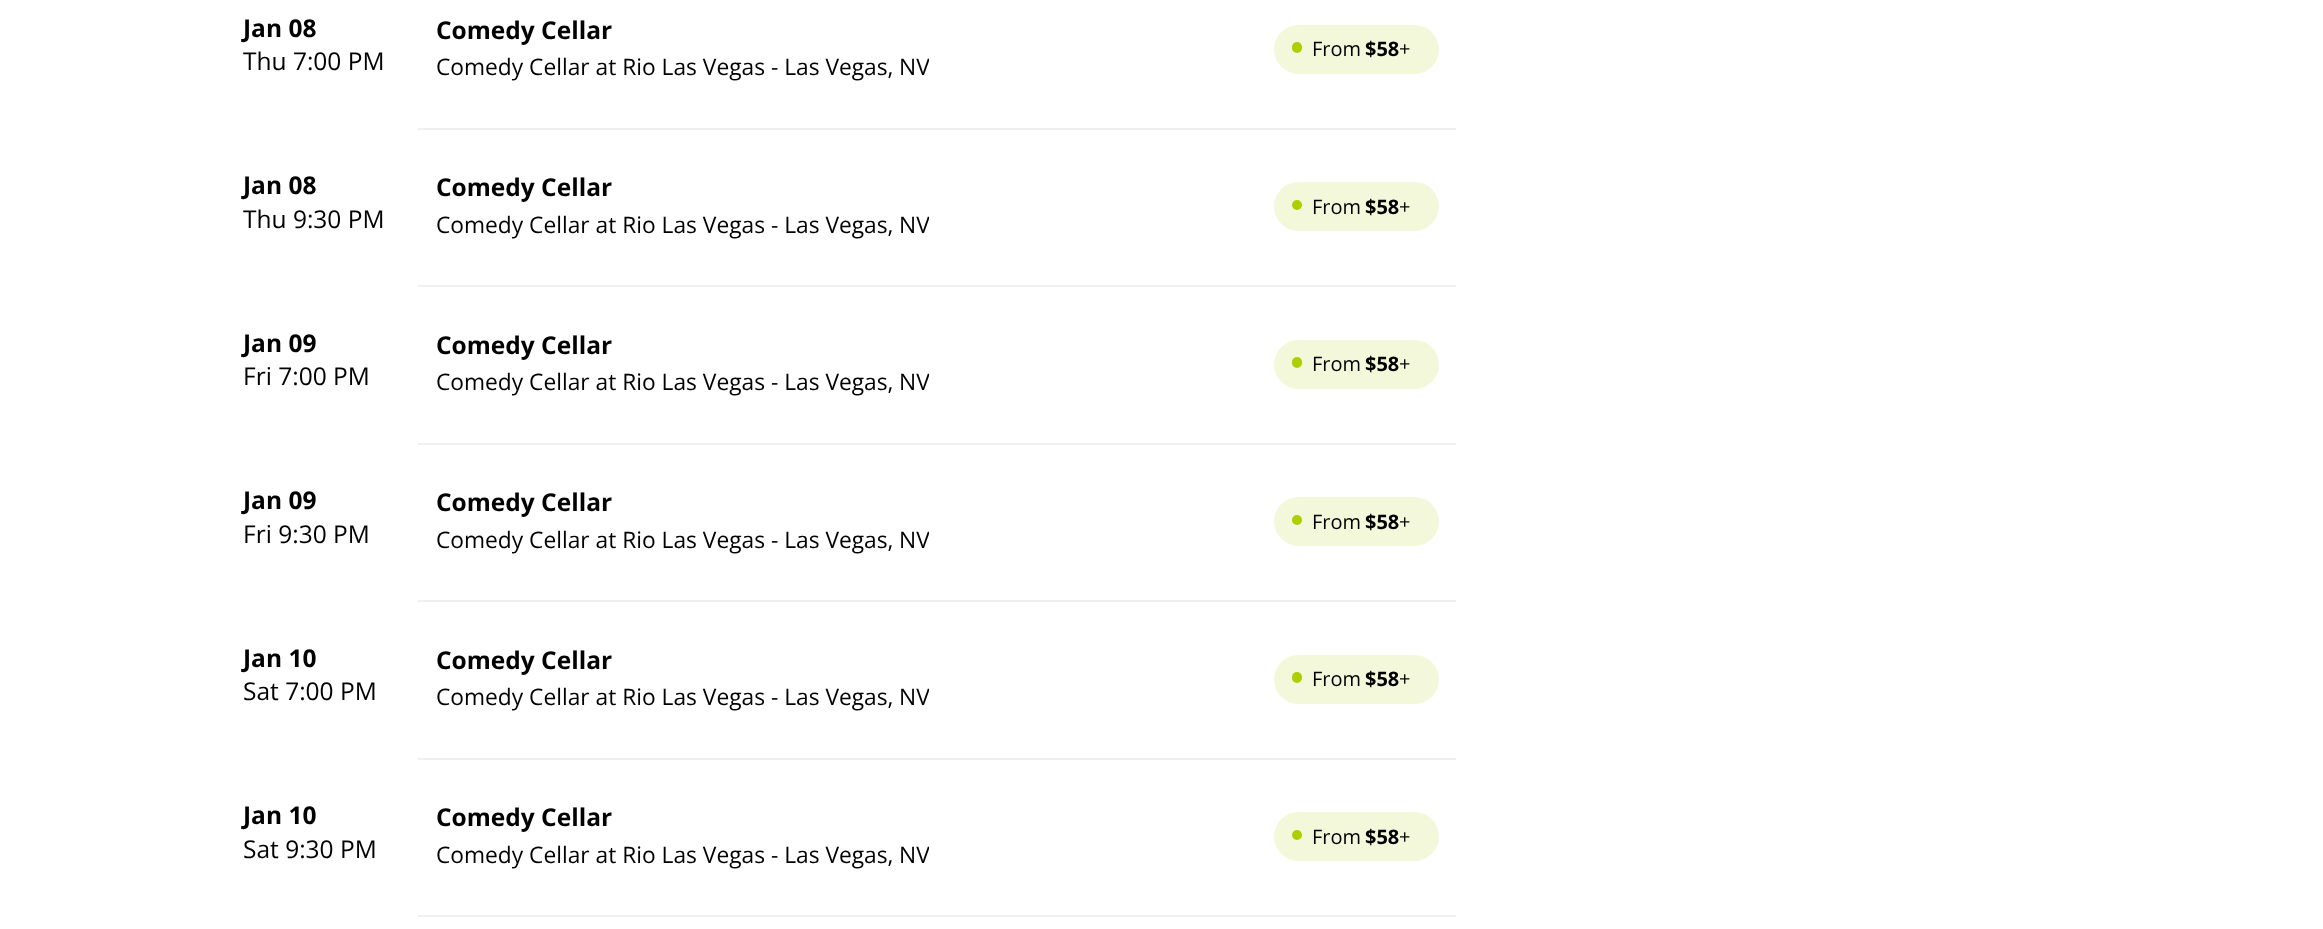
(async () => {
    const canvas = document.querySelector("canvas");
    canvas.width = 2323;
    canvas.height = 929;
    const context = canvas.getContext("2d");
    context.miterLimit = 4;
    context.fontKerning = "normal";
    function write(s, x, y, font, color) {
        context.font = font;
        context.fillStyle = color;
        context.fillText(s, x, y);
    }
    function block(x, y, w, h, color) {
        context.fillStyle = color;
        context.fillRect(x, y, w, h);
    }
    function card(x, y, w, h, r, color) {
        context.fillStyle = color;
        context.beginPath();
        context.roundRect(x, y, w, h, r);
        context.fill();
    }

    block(0, 0, 2323, 929, "rgb(255, 255, 255)");
    write("Jan 08", 243, 37, "bold 24.5px Open Sans", "rgb(0, 0, 0)");
    write("Thu 7:00 PM", 243, 70, "24.5px Open Sans", "rgb(0, 0, 0)");
    block(418, 128, 1038, 2, "rgb(240, 240, 240)");
    write("Comedy Cellar", 436, 39, "bold 24.5px Open Sans", "rgb(0, 0, 0)");
    card(1292, 42, 10, 11, 5, "rgb(174, 206, 0)");
    card(1274, 25, 165, 49, 24.5, "rgba(174, 206, 0, 0.14)");
    write("From", 1312, 56, "20px Open Sans", "rgb(0, 0, 0)");
    write("$58", 1365, 56, "bold 20px Open Sans", "rgb(0, 0, 0)");
    write("+", 1399, 56, "20px Open Sans", "rgb(0, 0, 0)");
    write("Comedy Cellar at Rio Las Vegas - Las Vegas,", 436, 75, "22.75px Open Sans", "rgb(0, 0, 0)");
    context.save();
    context.beginPath();
    context.rect(436, 49, 493, 35);
    context.clip();
    write("NV", 899, 75, "22.75px Open Sans", "rgb(0, 0, 0)");
    context.restore();
    write("Jan 08", 243, 194, "bold 24.5px Open Sans", "rgb(0, 0, 0)");
    write("Thu 9:30 PM", 243, 228, "24.5px Open Sans", "rgb(0, 0, 0)");
    block(418, 285, 1038, 2, "rgb(240, 240, 240)");
    write("Comedy Cellar", 436, 196, "bold 24.5px Open Sans", "rgb(0, 0, 0)");
    context.fillStyle = "rgb(174, 206, 0)";
    context.beginPath();
    context.arc(1297, 205, 5, 0, Math.PI * 2);
    context.fill();
    card(1274, 182, 165, 49, 24.5, "rgba(174, 206, 0, 0.14)");
    write("From", 1312, 214, "20px Open Sans", "rgb(0, 0, 0)");
    write("$58", 1365, 214, "bold 20px Open Sans", "rgb(0, 0, 0)");
    write("+", 1399, 214, "20px Open Sans", "rgb(0, 0, 0)");
    write("Comedy Cellar at Rio Las Vegas - Las Vegas,", 436, 233, "22.75px Open Sans", "rgb(0, 0, 0)");
    context.save();
    context.beginPath();
    context.rect(436, 207, 493, 35);
    context.clip();
    write("NV", 899, 233, "22.75px Open Sans", "rgb(0, 0, 0)");
    context.restore();
    write("Jan 09", 243, 352, "bold 24.5px Open Sans", "rgb(0, 0, 0)");
    write("Fri 7:00 PM", 243, 385, "24.5px Open Sans", "rgb(0, 0, 0)");
    block(418, 443, 1038, 2, "rgb(240, 240, 240)");
    write("Comedy Cellar", 436, 354, "bold 24.5px Open Sans", "rgb(0, 0, 0)");
    card(1292, 357, 10, 11, 5, "rgb(174, 206, 0)");
    card(1274, 340, 165, 49, 24.5, "rgba(174, 206, 0, 0.14)");
    write("From", 1312, 371, "20px Open Sans", "rgb(0, 0, 0)");
    write("$58", 1365, 371, "bold 20px Open Sans", "rgb(0, 0, 0)");
    write("+", 1399, 371, "20px Open Sans", "rgb(0, 0, 0)");
    write("Comedy Cellar at Rio Las Vegas - Las Vegas,", 436, 390, "22.75px Open Sans", "rgb(0, 0, 0)");
    context.save();
    context.beginPath();
    context.rect(436, 364, 493, 35);
    context.clip();
    write("NV", 899, 390, "22.75px Open Sans", "rgb(0, 0, 0)");
    context.restore();
    write("Jan 09", 243, 509, "bold 24.5px Open Sans", "rgb(0, 0, 0)");
    write("Fri 9:30 PM", 243, 543, "24.5px Open Sans", "rgb(0, 0, 0)");
    block(418, 600, 1038, 2, "rgb(240, 240, 240)");
    write("Comedy Cellar", 436, 511, "bold 24.5px Open Sans", "rgb(0, 0, 0)");
    context.fillStyle = "rgb(174, 206, 0)";
    context.beginPath();
    context.arc(1297, 520, 5, 0, Math.PI * 2);
    context.fill();
    card(1274, 497, 165, 49, 24.5, "rgba(174, 206, 0, 0.14)");
    write("From", 1312, 529, "20px Open Sans", "rgb(0, 0, 0)");
    write("$58", 1365, 529, "bold 20px Open Sans", "rgb(0, 0, 0)");
    write("+", 1399, 529, "20px Open Sans", "rgb(0, 0, 0)");
    write("Comedy Cellar at Rio Las Vegas - Las Vegas,", 436, 548, "22.75px Open Sans", "rgb(0, 0, 0)");
    context.save();
    context.beginPath();
    context.rect(436, 522, 493, 35);
    context.clip();
    write("NV", 899, 548, "22.75px Open Sans", "rgb(0, 0, 0)");
    context.restore();
    write("Jan 10", 243, 667, "bold 24.5px Open Sans", "rgb(0, 0, 0)");
    write("Sat 7:00 PM", 243, 700, "24.5px Open Sans", "rgb(0, 0, 0)");
    block(418, 758, 1038, 2, "rgb(240, 240, 240)");
    write("Comedy Cellar", 436, 669, "bold 24.5px Open Sans", "rgb(0, 0, 0)");
    card(1292, 672, 10, 11, 5, "rgb(174, 206, 0)");
    card(1274, 655, 165, 49, 24.5, "rgba(174, 206, 0, 0.14)");
    write("From", 1312, 686, "20px Open Sans", "rgb(0, 0, 0)");
    write("$58", 1365, 686, "bold 20px Open Sans", "rgb(0, 0, 0)");
    write("+", 1399, 686, "20px Open Sans", "rgb(0, 0, 0)");
    write("Comedy Cellar at Rio Las Vegas - Las Vegas,", 436, 705, "22.75px Open Sans", "rgb(0, 0, 0)");
    context.save();
    context.beginPath();
    context.rect(436, 679, 493, 35);
    context.clip();
    write("NV", 899, 705, "22.75px Open Sans", "rgb(0, 0, 0)");
    context.restore();
    write("Jan 10", 243, 824, "bold 24.5px Open Sans", "rgb(0, 0, 0)");
    write("Sat 9:30 PM", 243, 858, "24.5px Open Sans", "rgb(0, 0, 0)");
    block(418, 915, 1038, 2, "rgb(240, 240, 240)");
    write("Comedy Cellar", 436, 826, "bold 24.5px Open Sans", "rgb(0, 0, 0)");
    context.fillStyle = "rgb(174, 206, 0)";
    context.beginPath();
    context.arc(1297, 835, 5, 0, Math.PI * 2);
    context.fill();
    card(1274, 812, 165, 49, 24.5, "rgba(174, 206, 0, 0.14)");
    write("From", 1312, 844, "20px Open Sans", "rgb(0, 0, 0)");
    write("$58", 1365, 844, "bold 20px Open Sans", "rgb(0, 0, 0)");
    write("+", 1399, 844, "20px Open Sans", "rgb(0, 0, 0)");
    write("Comedy Cellar at Rio Las Vegas - Las Vegas,", 436, 863, "22.75px Open Sans", "rgb(0, 0, 0)");
    context.save();
    context.beginPath();
    context.rect(436, 837, 493, 35);
    context.clip();
    write("NV", 899, 863, "22.75px Open Sans", "rgb(0, 0, 0)");
    context.restore();
})();
